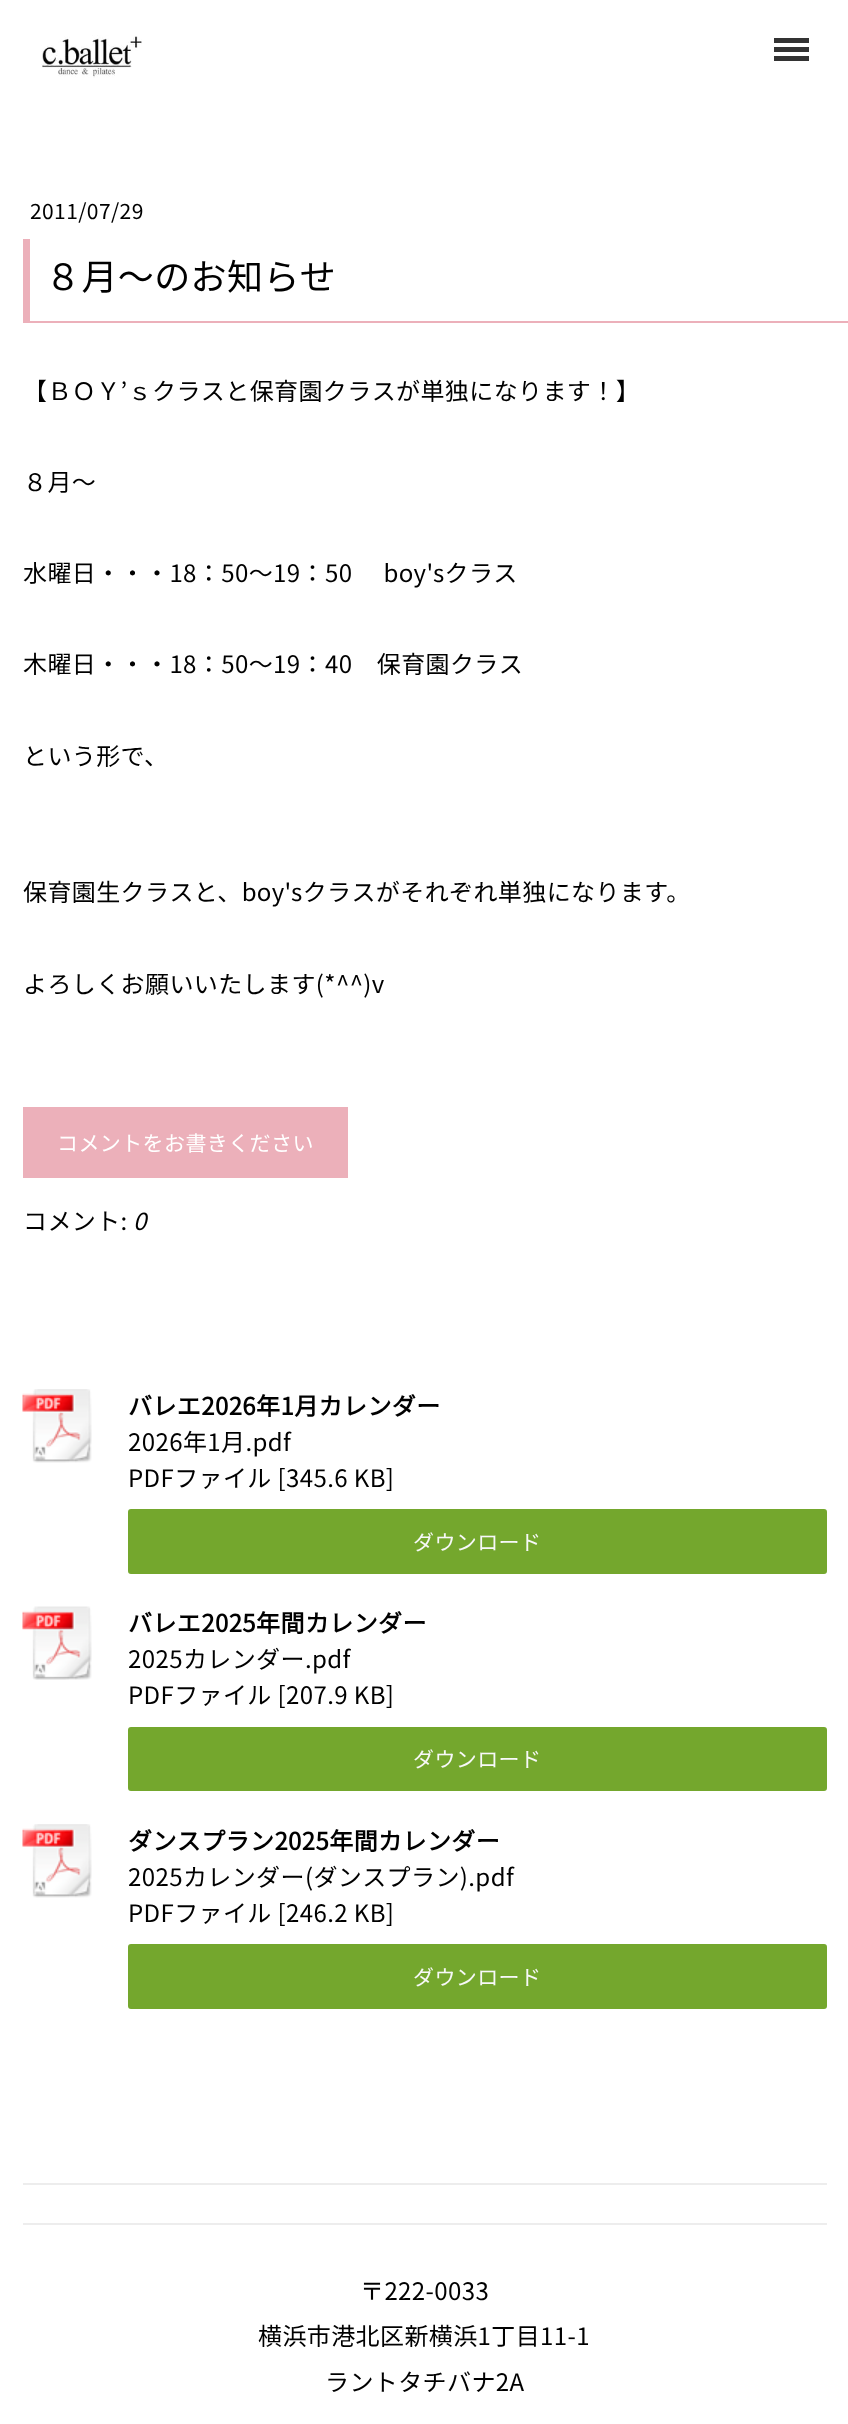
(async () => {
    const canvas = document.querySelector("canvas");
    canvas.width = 848;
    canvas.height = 2424;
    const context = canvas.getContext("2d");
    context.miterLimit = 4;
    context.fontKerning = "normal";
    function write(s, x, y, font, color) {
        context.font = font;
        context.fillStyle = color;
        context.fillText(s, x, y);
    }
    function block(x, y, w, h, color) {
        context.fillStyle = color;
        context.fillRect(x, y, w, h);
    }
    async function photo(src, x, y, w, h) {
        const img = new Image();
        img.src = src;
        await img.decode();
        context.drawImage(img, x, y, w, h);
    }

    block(0, 0, 848, 2424, "rgb(255, 255, 255)");
    await photo("media/1.png", 41, 35, 101, 43);
    block(774, 47, 35, 5, "rgb(51, 51, 51)");
    block(774, 38, 35, 5, "rgb(51, 51, 51)");
    block(774, 56, 35, 5, "rgb(51, 51, 51)");
    context.letterSpacing = "0.4px";
    write("2011/07/29", 30, 219, "100 21px Noto Sans JP", "rgb(0, 0, 0)");
    block(23, 321, 825, 2, "rgb(236, 176, 186)");
    block(23, 239, 7, 84, "rgb(236, 176, 186)");
    write("８月～のお知らせ", 45, 290, "100 36px Noto Sans JP", "rgb(0, 0, 0)");
    write("【ＢＯＹ’ｓクラスと保育園クラスが単独になります！】", 23, 400, "100 24px Noto Sans JP", "rgb(0, 0, 0)");
    write("８月～", 23, 491, "100 24px Noto Sans JP", "rgb(0, 0, 0)");
    context.wordSpacing = "1px";
    write("水曜日・・・18：50～19：50 　boy'sクラス", 23, 582, "100 24px Noto Sans JP", "rgb(0, 0, 0)");
    context.wordSpacing = "0px";
    write("木曜日・・・18：50～19：40　保育園クラス", 23, 673, "100 24px Noto Sans JP", "rgb(0, 0, 0)");
    write("という形で、", 23, 765, "100 24px Noto Sans JP", "rgb(0, 0, 0)");
    write("保育園生クラスと、boy'sクラスがそれぞれ単独になります。", 23, 901, "100 24px Noto Sans JP", "rgb(0, 0, 0)");
    write("よろしくお願いいたします(*^^)v", 23, 993, "100 24px Noto Sans JP", "rgb(0, 0, 0)");
    block(23, 1107, 325, 71, "rgb(236, 176, 186)");
    write("コメントをお書きください", 57, 1151, "100 21px Noto Sans JP", "rgb(255, 255, 255)");
    write("コメント:", 23, 1230, "100 24px Noto Sans JP", "rgb(0, 0, 0)");
    write("0", 133, 1230, "italic 100 24px Noto Sans JP", "rgb(0, 0, 0)");
    await photo("media/2.png", 22, 1389, 70, 74);
    write("バレエ2026年1月カレンダー", 128, 1415, "bold 24px Noto Sans JP", "rgb(0, 0, 0)");
    write("2026年1月.pdf", 128, 1451, "100 24px Noto Sans JP", "rgb(0, 0, 0)");
    write("PDFファイル [345.6 KB]", 128, 1487, "100 24px Noto Sans JP", "rgb(0, 0, 0)");
    context.fillStyle = "rgb(116, 167, 45)";
    context.beginPath();
    context.roundRect(129, 1510, 697, 63, 2);
    context.fill();
    context.strokeStyle = "rgb(116, 167, 45)";
    context.lineWidth = 2;
    context.stroke();
    write("ダウンロード", 413, 1550, "100 21px Noto Sans JP", "rgb(247, 248, 248)");
    await photo("media/3.png", 22, 1606, 70, 74);
    write("バレエ2025年間カレンダー", 128, 1632, "bold 24px Noto Sans JP", "rgb(0, 0, 0)");
    write("2025カレンダー.pdf", 128, 1668, "100 24px Noto Sans JP", "rgb(0, 0, 0)");
    write("PDFファイル [207.9 KB]", 128, 1704, "100 24px Noto Sans JP", "rgb(0, 0, 0)");
    context.fillStyle = "rgb(116, 167, 45)";
    context.beginPath();
    context.roundRect(129, 1728, 697, 62, 2);
    context.fill();
    context.stroke();
    write("ダウンロード", 413, 1767, "100 21px Noto Sans JP", "rgb(247, 248, 248)");
    await photo("media/2.png", 22, 1824, 70, 74);
    write("ダンスプラン2025年間カレンダー", 128, 1850, "bold 24px Noto Sans JP", "rgb(0, 0, 0)");
    write("2025カレンダー(ダンスプラン).pdf", 128, 1886, "100 24px Noto Sans JP", "rgb(0, 0, 0)");
    write("PDFファイル [246.2 KB]", 128, 1922, "100 24px Noto Sans JP", "rgb(0, 0, 0)");
    context.fillStyle = "rgb(116, 167, 45)";
    context.beginPath();
    context.roundRect(129, 1945, 697, 63, 2);
    context.fill();
    context.stroke();
    write("ダウンロード", 413, 1985, "100 21px Noto Sans JP", "rgb(247, 248, 248)");
    block(23, 2183, 804, 2, "rgb(237, 237, 237)");
    block(23, 2223, 804, 2, "rgb(237, 237, 237)");
    write("〒222-0033", 360, 2300, "100 24px Noto Sans JP", "rgb(0, 0, 0)");
    write("横浜市港北区新横浜1丁目11-1", 258, 2345, "100 24px Noto Sans JP", "rgb(0, 0, 0)");
    write("ラントタチバナ2A", 325, 2391, "100 24px Noto Sans JP", "rgb(0, 0, 0)");
})();
